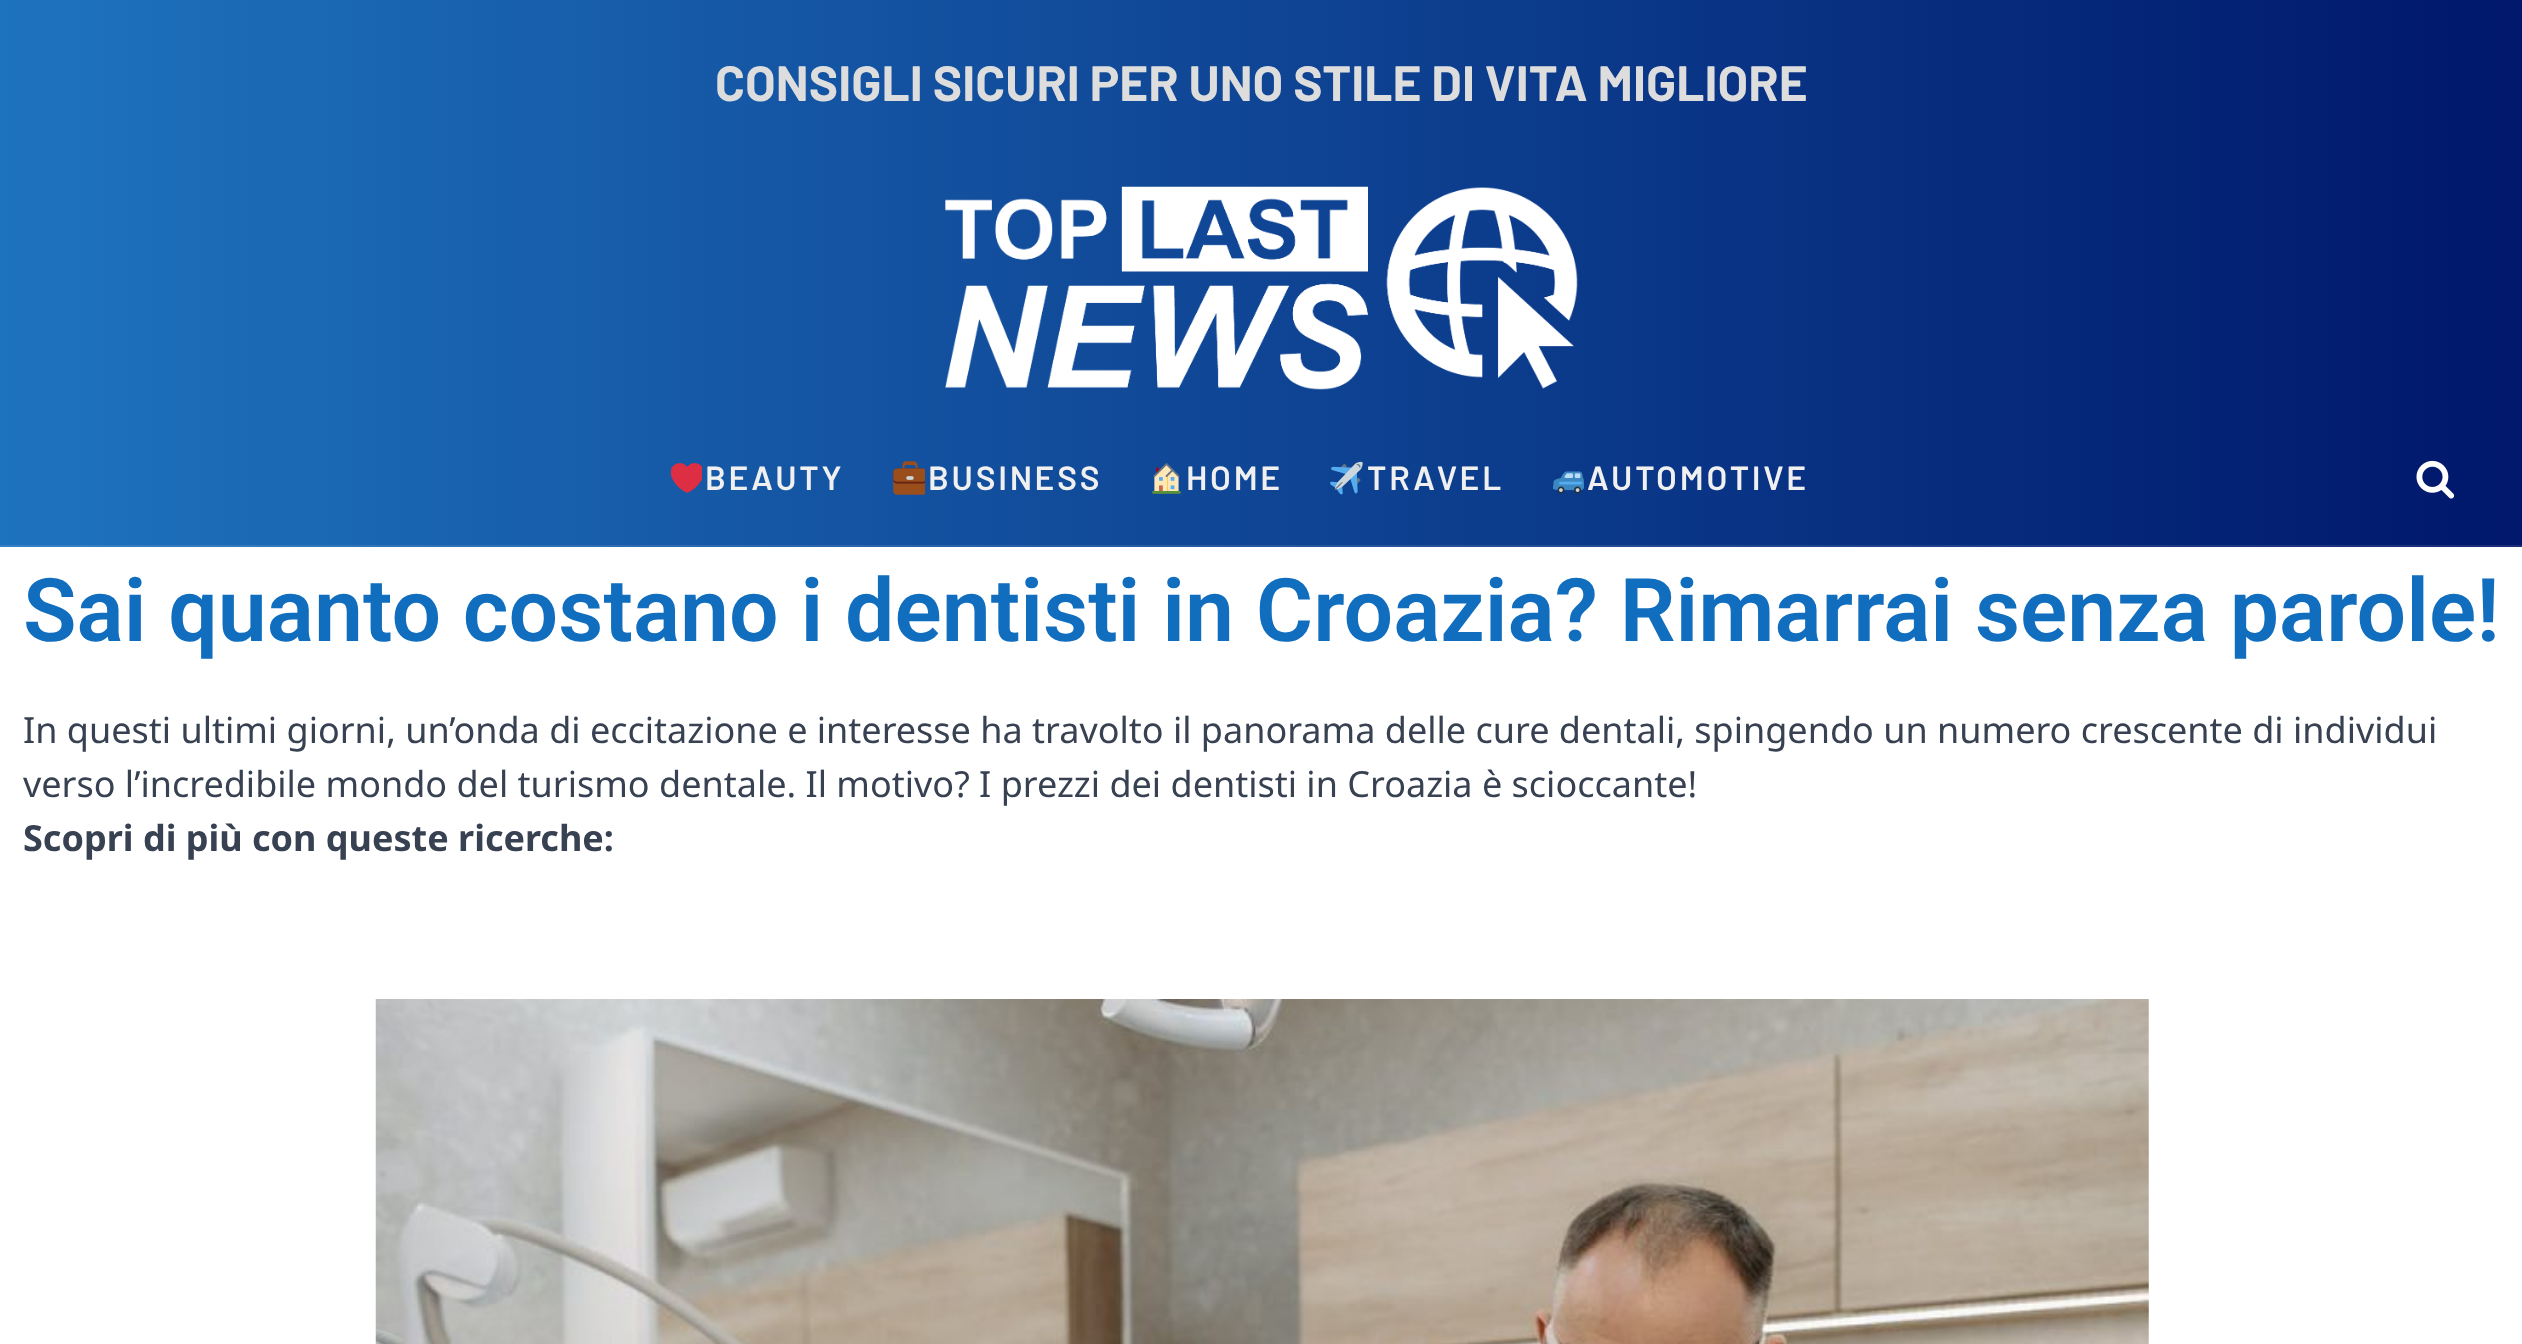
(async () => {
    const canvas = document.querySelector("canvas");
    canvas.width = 2522;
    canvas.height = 1344;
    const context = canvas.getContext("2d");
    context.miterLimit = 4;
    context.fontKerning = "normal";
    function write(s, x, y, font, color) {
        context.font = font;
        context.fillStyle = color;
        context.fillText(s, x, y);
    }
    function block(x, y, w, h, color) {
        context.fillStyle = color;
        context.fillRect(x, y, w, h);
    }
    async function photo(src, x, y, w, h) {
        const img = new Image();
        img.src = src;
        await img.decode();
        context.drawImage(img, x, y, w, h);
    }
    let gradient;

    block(0, 0, 2522, 1344, "rgb(255, 255, 255)");
    gradient = context.createLinearGradient(0, 82, 2522, 82);
    gradient.addColorStop(0, "rgb(30, 115, 190)");
    gradient.addColorStop(1, "rgb(0, 23, 107)");
    context.fillStyle = gradient;
    context.fillRect(0, 0, 2522, 164);
    write("CONSIGLI SICURI PER UNO STILE DI VITA MIGLIORE", 715, 101, "bold 49.5px Barlow", "rgb(221, 221, 221)");
    gradient = context.createLinearGradient(0, 288, 2522, 288);
    gradient.addColorStop(0, "rgb(30, 115, 190)");
    gradient.addColorStop(1, "rgb(0, 23, 107)");
    context.fillStyle = gradient;
    context.fillRect(0, 164, 2522, 248);
    await photo("media/1.png", 945, 186, 633, 204);
    gradient = context.createLinearGradient(0, 478, 2522, 478);
    gradient.addColorStop(0, "rgb(30, 115, 190)");
    gradient.addColorStop(1, "rgb(0, 23, 107)");
    context.fillStyle = gradient;
    context.fillRect(0, 412, 2522, 133);
    gradient = context.createLinearGradient(0, 478, 2522, 478);
    gradient.addColorStop(0, "rgb(53, 129, 197)");
    gradient.addColorStop(1, "rgb(26, 46, 122)");
    context.fillStyle = gradient;
    context.fillRect(0, 545, 2522, 2);
    await photo("media/2.png", 671, 463, 31, 30);
    context.letterSpacing = "2.75px";
    write("BEAUTY", 705, 490, "600 33.5px Barlow", "rgb(240, 240, 240)");
    await photo("media/3.png", 893, 461, 32, 34);
    write("BUSINESS", 928, 490, "600 33.5px Barlow", "rgb(240, 240, 240)");
    await photo("media/4.png", 1152, 463, 29, 31);
    write("HOME", 1186, 490, "600 33.5px Barlow", "rgb(240, 240, 240)");
    await photo("media/5.png", 1330, 461, 33, 34);
    write("TRAVEL", 1367, 490, "600 33.5px Barlow", "rgb(240, 240, 240)");
    await photo("media/6.png", 1553, 471, 31, 23);
    write("AUTOMOTIVE", 1587, 490, "600 33.5px Barlow", "rgb(240, 240, 240)");
    await photo("media/7.png", 2416, 460, 39, 39);
    context.letterSpacing = "0px";
    write("Sai quanto costano i dentisti in Croazia? Rimarrai senza parole!", 23, 641, "600 87.75px Roboto", "rgb(17, 110, 191)");
    write("In questi ultimi giorni, un’onda di eccitazione e interesse ha travolto il panorama delle cure dentali, spingendo un numero crescente di individui", 23, 743, "36px Noto Sans", "rgb(55, 65, 81)");
    write("verso l’incredibile mondo del turismo dentale. Il motivo? I prezzi dei dentisti in Croazia è scioccante!", 23, 797, "36px Noto Sans", "rgb(55, 65, 81)");
    write("Scopri di più con queste ricerche:", 23, 851, "bold 36px Noto Sans", "rgb(55, 65, 81)");
    await photo("media/8.png", 375, 999, 1774, 345);
})();
